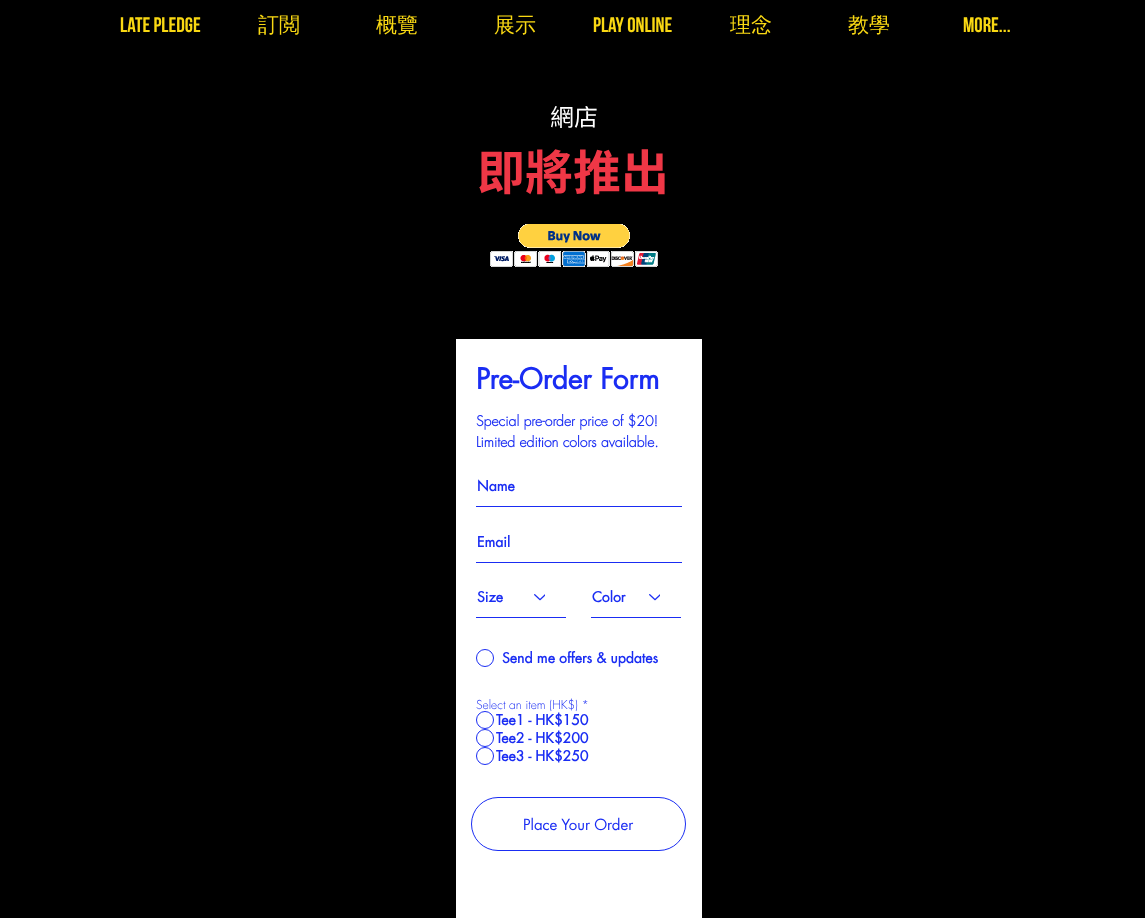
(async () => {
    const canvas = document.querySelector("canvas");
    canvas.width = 1145;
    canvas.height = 918;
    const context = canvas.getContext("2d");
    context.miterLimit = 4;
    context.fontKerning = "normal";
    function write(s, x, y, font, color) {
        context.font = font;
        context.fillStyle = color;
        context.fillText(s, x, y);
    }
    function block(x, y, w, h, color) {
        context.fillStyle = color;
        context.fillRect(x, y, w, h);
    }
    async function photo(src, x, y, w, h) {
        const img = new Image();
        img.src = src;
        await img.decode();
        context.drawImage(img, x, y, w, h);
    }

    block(0, 0, 1145, 918, "rgb(0, 0, 0)");
    write("Late Pledge", 120, 32, "21px Bebas Neue", "rgb(249, 216, 19)");
    write("訂閲", 258, 32, "500 21px WenQuanYi Zen Hei", "rgb(249, 216, 19)");
    write("概覽", 376, 32, "500 21px WenQuanYi Zen Hei", "rgb(249, 216, 19)");
    write("展示", 494, 32, "500 21px WenQuanYi Zen Hei", "rgb(249, 216, 19)");
    write("Play Online", 593, 32, "21px Bebas Neue", "rgb(249, 216, 19)");
    write("理念", 730, 32, "500 21px WenQuanYi Zen Hei", "rgb(249, 216, 19)");
    write("教學", 848, 32, "500 21px WenQuanYi Zen Hei", "rgb(249, 216, 19)");
    write("More...", 963, 32, "21px Bebas Neue", "rgb(249, 216, 19)");
    write("網店", 550, 126, "24px Noto Sans CJK TC", "rgb(255, 255, 255)");
    write("即將推出", 477, 190, "bold 48px Noto Sans CJK TC", "rgb(239, 55, 70)");
    await photo("media/1.png", 490, 224, 168, 43);
    block(456, 339, 246, 579, "rgb(255, 255, 255)");
    write("Pre-Order Form", 476, 389, "bold 28px futura", "rgb(26, 45, 243)");
    write("Special pre-order price of $20!", 476, 426, "bold 14px 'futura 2'", "rgb(26, 45, 243)");
    write("Limited edition colors available.", 476, 447, "bold 14px 'futura 2'", "rgb(26, 45, 243)");
    block(476, 506, 206, 1, "rgb(26, 45, 243)");
    write("Name", 477, 491, "bold 14px futura", "rgb(26, 45, 243)");
    block(476, 562, 206, 1, "rgb(26, 45, 243)");
    write("Email", 477, 547, "bold 14px futura", "rgb(26, 45, 243)");
    block(476, 617, 90, 1, "rgb(26, 45, 243)");
    write("Size", 477, 602, "bold 14px futura", "rgb(26, 45, 243)");
    await photo("media/2.png", 534, 594, 11, 7);
    block(591, 617, 90, 1, "rgb(26, 45, 243)");
    write("Color", 592, 602, "bold 14px futura", "rgb(26, 45, 243)");
    await photo("media/2.png", 649, 594, 11, 7);
    context.beginPath();
    context.arc(485, 658, 8.5, 0, Math.PI * 2);
    context.strokeStyle = "rgb(26, 45, 243)";
    context.stroke();
    write("Send me offers & updates", 502, 663, "bold 14px futura", "rgb(26, 45, 243)");
    write("Select an item (HK$) *", 476, 709, "300 12px futura", "rgb(26, 45, 243)");
    context.beginPath();
    context.arc(485, 720, 8.5, 0, Math.PI * 2);
    context.stroke();
    write("Tee1 - HK$150", 496, 725, "bold 14px futura", "rgb(26, 45, 243)");
    context.beginPath();
    context.arc(485, 738, 8.5, 0, Math.PI * 2);
    context.stroke();
    write("Tee2 - HK$200", 496, 743, "bold 14px futura", "rgb(26, 45, 243)");
    context.beginPath();
    context.arc(485, 756, 8.5, 0, Math.PI * 2);
    context.stroke();
    write("Tee3 - HK$250", 496, 761, "bold 14px futura", "rgb(26, 45, 243)");
    context.beginPath();
    context.roundRect(471.5, 797.5, 214, 53, 26.5);
    context.stroke();
    write("Place Your Order", 523, 830, "15px futura", "rgb(26, 45, 243)");
})();
